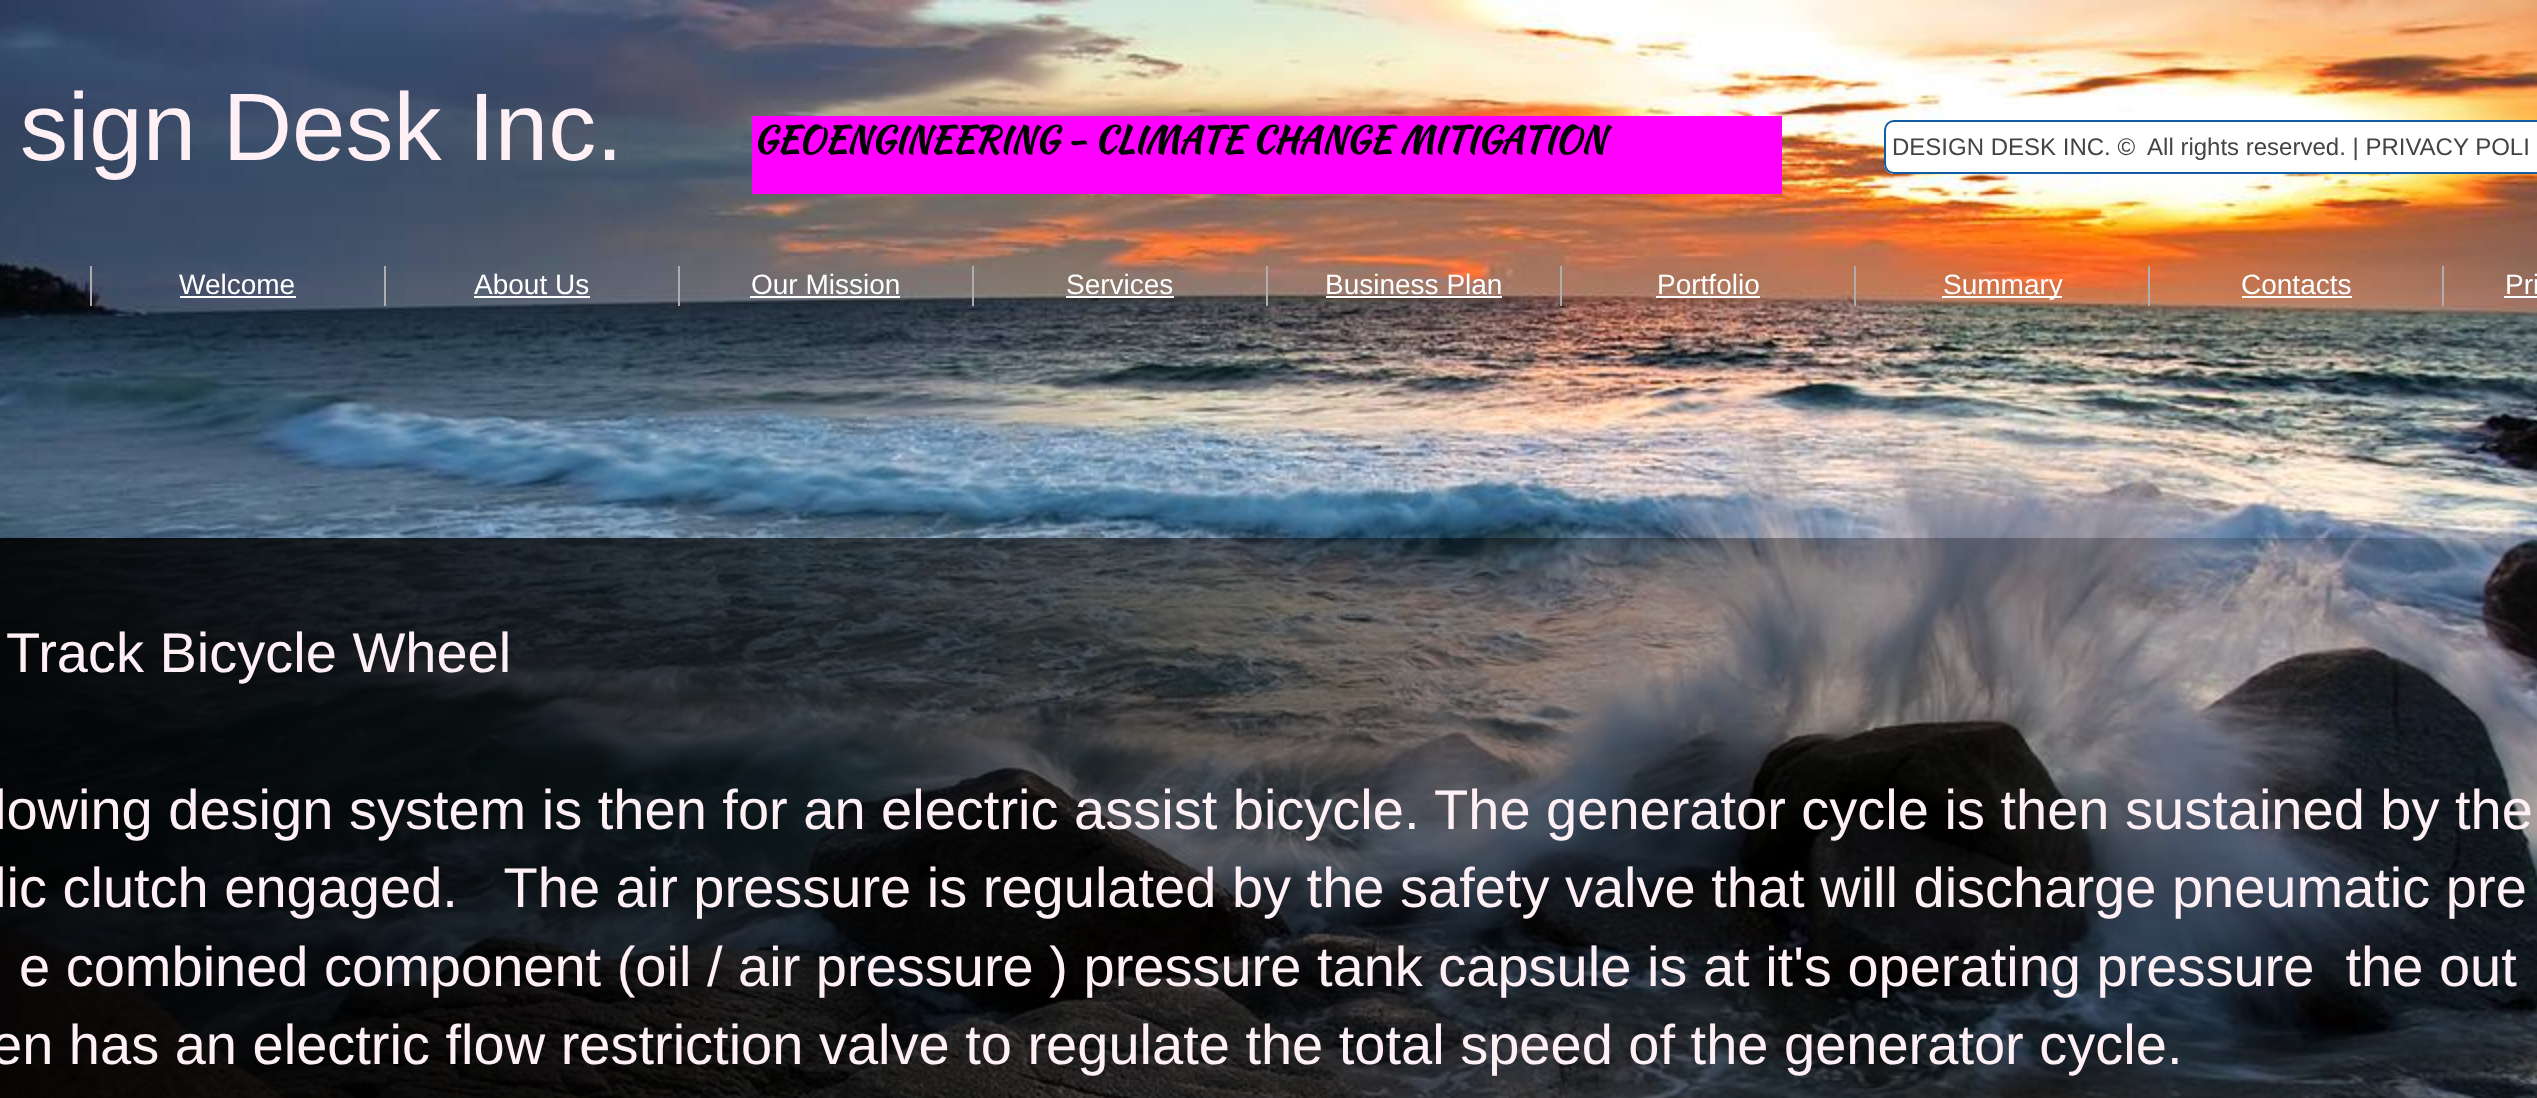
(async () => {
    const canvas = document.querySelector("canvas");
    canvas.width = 2537;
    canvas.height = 1098;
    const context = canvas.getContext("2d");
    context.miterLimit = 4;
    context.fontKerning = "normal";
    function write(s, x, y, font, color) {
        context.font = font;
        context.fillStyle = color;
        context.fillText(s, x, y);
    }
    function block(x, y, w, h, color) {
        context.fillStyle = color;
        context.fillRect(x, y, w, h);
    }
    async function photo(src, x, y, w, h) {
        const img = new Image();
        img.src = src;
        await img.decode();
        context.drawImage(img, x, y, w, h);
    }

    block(0, 0, 2537, 1098, "rgb(255, 255, 255)");
    await photo("media/1.png", 0, 0, 2537, 1098);
    write("sign Desk Inc.", 20, 160, "96px Liberation Sans", "rgb(255, 240, 245)");
    block(752, 116, 1030, 78, "rgb(255, 0, 255)");
    write("GEOENGINEERING - CLIMATE CHANGE MITIGATION", 753, 152, "bold 36px Kaushan Script", "rgb(0, 0, 0)");
    context.fillStyle = "rgb(255, 255, 255)";
    context.beginPath();
    context.moveTo(1894, 120);
    context.lineTo(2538, 120);
    context.lineTo(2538, 174);
    context.lineTo(1894, 174);
    context.bezierCurveTo(1888.5, 174, 1884, 169.5, 1884, 164);
    context.lineTo(1884, 130);
    context.bezierCurveTo(1884, 124.5, 1888.5, 120, 1894, 120);
    context.closePath();
    context.fill();
    context.beginPath();
    context.roundRect(1885, 121, 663, 52, 9);
    context.strokeStyle = "rgb(18, 92, 166)";
    context.lineWidth = 2;
    context.stroke();
    write("DESIGN DESK INC. ©  All rights reserved. | PRIVACY POLI", 1892, 155, "24px Liberation Sans", "rgb(68, 68, 68)");
    block(90, 266, 2, 40, "rgb(174, 174, 174)");
    block(384, 266, 2, 40, "rgb(174, 174, 174)");
    write("Welcome", 179, 294, "28px Liberation Sans", "rgb(255, 255, 255)");
    block(180, 296, 116, 2, "rgb(255, 255, 255)");
    block(678, 266, 2, 40, "rgb(174, 174, 174)");
    write("About Us", 474, 294, "28px Liberation Sans", "rgb(255, 255, 255)");
    block(474, 296, 116, 2, "rgb(255, 255, 255)");
    block(972, 266, 2, 40, "rgb(174, 174, 174)");
    write("Our Mission", 751, 294, "28px Liberation Sans", "rgb(255, 255, 255)");
    block(750, 296, 150, 2, "rgb(255, 255, 255)");
    block(1266, 266, 2, 40, "rgb(174, 174, 174)");
    write("Services", 1066, 294, "28px Liberation Sans", "rgb(255, 255, 255)");
    block(1066, 296, 108, 2, "rgb(255, 255, 255)");
    block(1560, 266, 2, 40, "rgb(174, 174, 174)");
    write("Business Plan", 1325, 294, "28px Liberation Sans", "rgb(255, 255, 255)");
    block(1326, 296, 176, 2, "rgb(255, 255, 255)");
    block(1854, 266, 2, 40, "rgb(174, 174, 174)");
    write("Portfolio", 1657, 294, "28px Liberation Sans", "rgb(255, 255, 255)");
    block(1656, 296, 104, 2, "rgb(255, 255, 255)");
    block(2148, 266, 2, 40, "rgb(174, 174, 174)");
    block(1942, 296, 120, 2, "rgb(255, 255, 255)");
    write("Summary", 1943, 294, "28px Liberation Sans", "rgb(255, 255, 255)");
    block(2442, 266, 2, 40, "rgb(174, 174, 174)");
    write("Contacts", 2241, 294, "28px Liberation Sans", "rgb(255, 255, 255)");
    block(2242, 296, 110, 2, "rgb(255, 255, 255)");
    write("Pri", 2505, 294, "28px Liberation Sans", "rgb(255, 255, 255)");
    block(2504, 296, 33, 2, "rgb(255, 255, 255)");
    write("Track Bicycle Wheel", 6, 672, "56px Liberation Sans", "rgb(255, 240, 245)");
    write("lowing design system is then for an electric assist bicycle. The generator cycle is then sustained by the", -6, 829, "56px Liberation Sans", "rgb(255, 240, 245)");
    write("lic clutch engaged.   The air pressure is regulated by the safety valve that will discharge pneumatic pre", -6, 907, "56px Liberation Sans", "rgb(255, 240, 245)");
    write("e combined component (oil / air pressure ) pressure tank capsule is at it's operating pressure  the out", 19, 986, "56px Liberation Sans", "rgb(255, 240, 245)");
    write("en has an electric flow restriction valve to regulate the total speed of the generator cycle.", -9, 1064, "56px Liberation Sans", "rgb(255, 240, 245)");
})();
